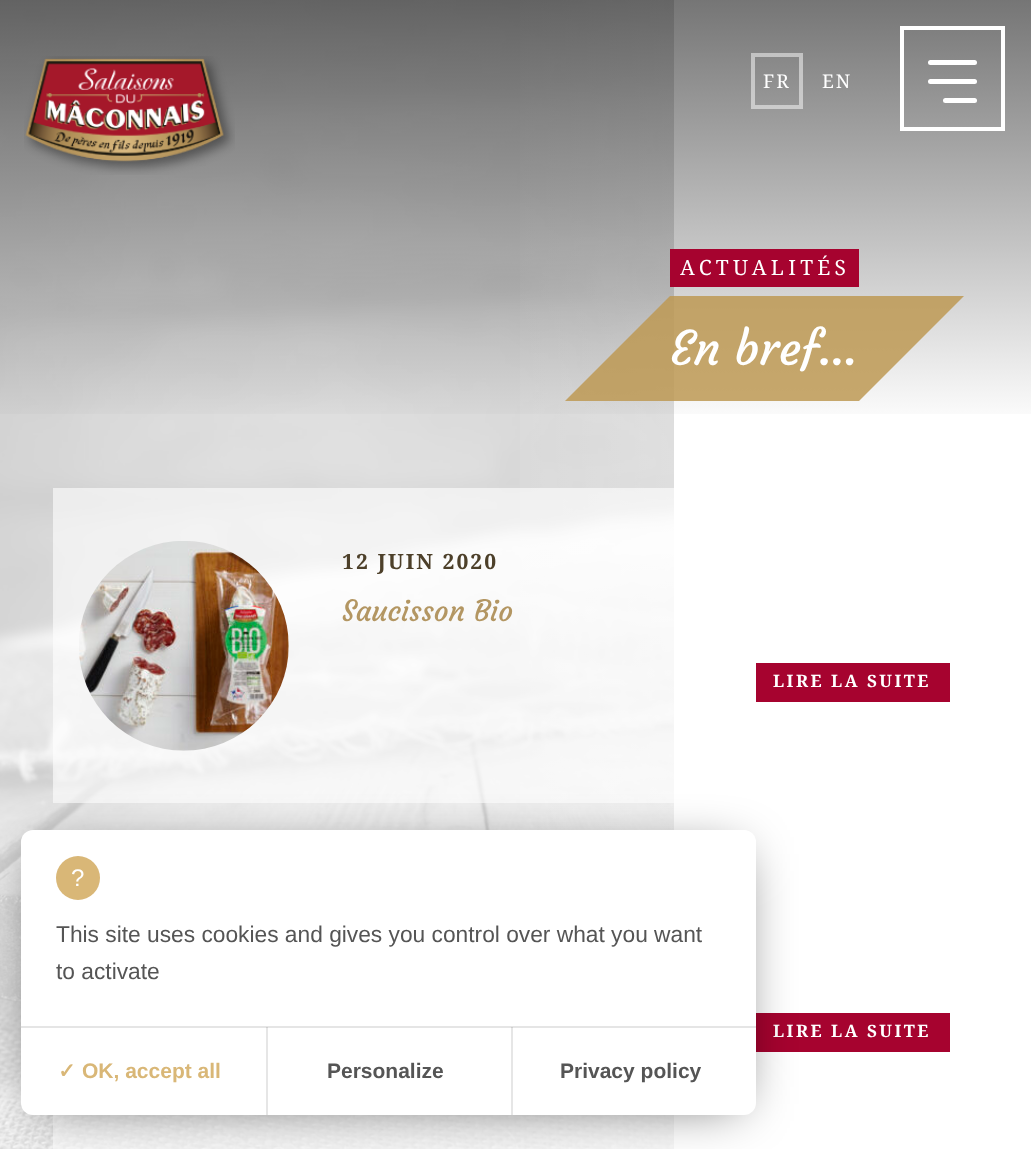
(async () => {
    const canvas = document.querySelector("canvas");
    canvas.width = 1031;
    canvas.height = 1149;
    const context = canvas.getContext("2d");
    context.miterLimit = 4;
    context.fontKerning = "normal";
    function write(s, x, y, font, color) {
        context.font = font;
        context.fillStyle = color;
        context.fillText(s, x, y);
    }
    function block(x, y, w, h, color) {
        context.fillStyle = color;
        context.fillRect(x, y, w, h);
    }
    function card(x, y, w, h, r, color) {
        context.fillStyle = color;
        context.beginPath();
        context.roundRect(x, y, w, h, r);
        context.fill();
    }
    async function photo(src, x, y, w, h) {
        const img = new Image();
        img.src = src;
        await img.decode();
        context.drawImage(img, x, y, w, h);
    }
    let gradient;

    block(0, 0, 1031, 1149, "rgb(255, 255, 255)");
    await photo("media/2.png", 0, 0, 674, 1149);
    gradient = context.createLinearGradient(674, 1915, 464, 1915);
    gradient.addColorStop(0, "rgba(255, 255, 255, 0.2)");
    gradient.addColorStop(1, "rgba(255, 255, 255, 0)");
    context.fillStyle = gradient;
    context.fillRect(520, 0, 154, 1149);
    gradient = context.createLinearGradient(516, 0, 516, 429);
    gradient.addColorStop(0, "rgba(26, 26, 26, 0.6)");
    gradient.addColorStop(1, "rgba(26, 26, 26, 0)");
    context.fillStyle = gradient;
    context.fillRect(0, 0, 1031, 414);
    await photo("media/1.png", 24, 56, 211, 119);
    context.strokeStyle = "rgba(255, 255, 255, 0.5)";
    context.lineWidth = 4;
    context.strokeRect(753, 55, 48, 52);
    context.letterSpacing = "2px";
    write("FR", 763, 88, "19px Noto Serif", "rgb(255, 255, 255)");
    write("EN", 822, 88, "19px Noto Serif", "rgb(255, 255, 255)");
    context.strokeStyle = "rgb(255, 255, 255)";
    context.strokeRect(902, 28, 101, 101);
    card(928, 79, 49, 5, 2.5, "rgb(255, 255, 255)");
    card(928, 60, 49, 5, 2.5, "rgb(255, 255, 255)");
    card(943, 98, 34, 5, 2.5, "rgb(255, 255, 255)");
    block(670, 249, 189, 38, "rgb(166, 3, 47)");
    context.letterSpacing = "4.25px";
    write("ACTUALITÉS", 680, 275, "21px Noto Serif", "rgb(255, 255, 255)");
    block(670, 296, 189, 105, "rgba(189, 153, 83, 0.85)");
    context.beginPath();
    context.moveTo(670, 401);
    context.lineTo(565, 401);
    context.lineTo(670, 296);
    context.closePath();
    context.fill();
    context.letterSpacing = "0px";
    write("En bref...", 670, 365, "47px Courgette", "rgb(255, 255, 255)");
    context.fillStyle = "rgba(189, 153, 83, 0.85)";
    context.beginPath();
    context.moveTo(859, 296);
    context.lineTo(964, 296);
    context.lineTo(859, 401);
    context.closePath();
    context.fill();
    block(53, 488, 621, 315, "rgba(255, 255, 255, 0.6)");
    await photo("media/3.png", 79, 541, 210, 210);
    context.letterSpacing = "2.1px";
    write("12 JUIN 2020", 342, 569, "bold 21px Noto Serif", "rgb(77, 64, 42)");
    context.letterSpacing = "0px";
    write("Saucisson Bio", 342, 621, "29px Courgette", "rgb(179, 150, 98)");
    block(756, 663, 194, 39, "rgb(166, 3, 47)");
    context.letterSpacing = "2.5px";
    write("LIRE LA SUITE", 773, 687, "bold 17px Noto Serif", "rgb(255, 255, 255)");
    block(53, 838, 621, 311, "rgba(255, 255, 255, 0.6)");
    block(756, 1013, 194, 39, "rgb(166, 3, 47)");
    write("LIRE LA SUITE", 773, 1037, "bold 17px Noto Serif", "rgb(255, 255, 255)");
    context.fillStyle = "rgba(0, 0, 0, 0.62)";
    context.filter = "blur(26px)";
    context.beginPath();
    context.rect(39, 854, 700, 250);
    context.fill();
    context.filter = "none";
    card(21, 830, 735, 285, 12, "rgb(255, 255, 255)");
    block(266, 1027, 2, 88, "rgb(230, 230, 230)");
    block(511, 1027, 2, 88, "rgb(230, 230, 230)");
    block(21, 1026, 735, 2, "rgba(0, 0, 0, 0.1)");
    context.fillStyle = "rgb(217, 183, 119)";
    context.beginPath();
    context.arc(78, 878, 22, 0, Math.PI * 2);
    context.fill();
    context.letterSpacing = "0px";
    write("?", 71, 886, "24px Liberation Sans", "rgb(255, 255, 255)");
    write("This site uses cookies and gives you control over what you want", 56, 942, "22.75px Liberation Sans", "rgb(85, 85, 85)");
    write("to activate", 56, 979, "22.75px Liberation Sans", "rgb(85, 85, 85)");
    write("✓", 58, 1078, "bold 21px DejaVu Sans", "rgb(217, 183, 119)");
    write("OK, accept all", 82, 1078, "bold 21px Liberation Sans", "rgb(217, 183, 119)");
    write("Personalize", 327, 1078, "bold 21px Liberation Sans", "rgb(85, 85, 85)");
    write("Privacy policy", 560, 1078, "bold 21px Liberation Sans", "rgb(85, 85, 85)");
})();
